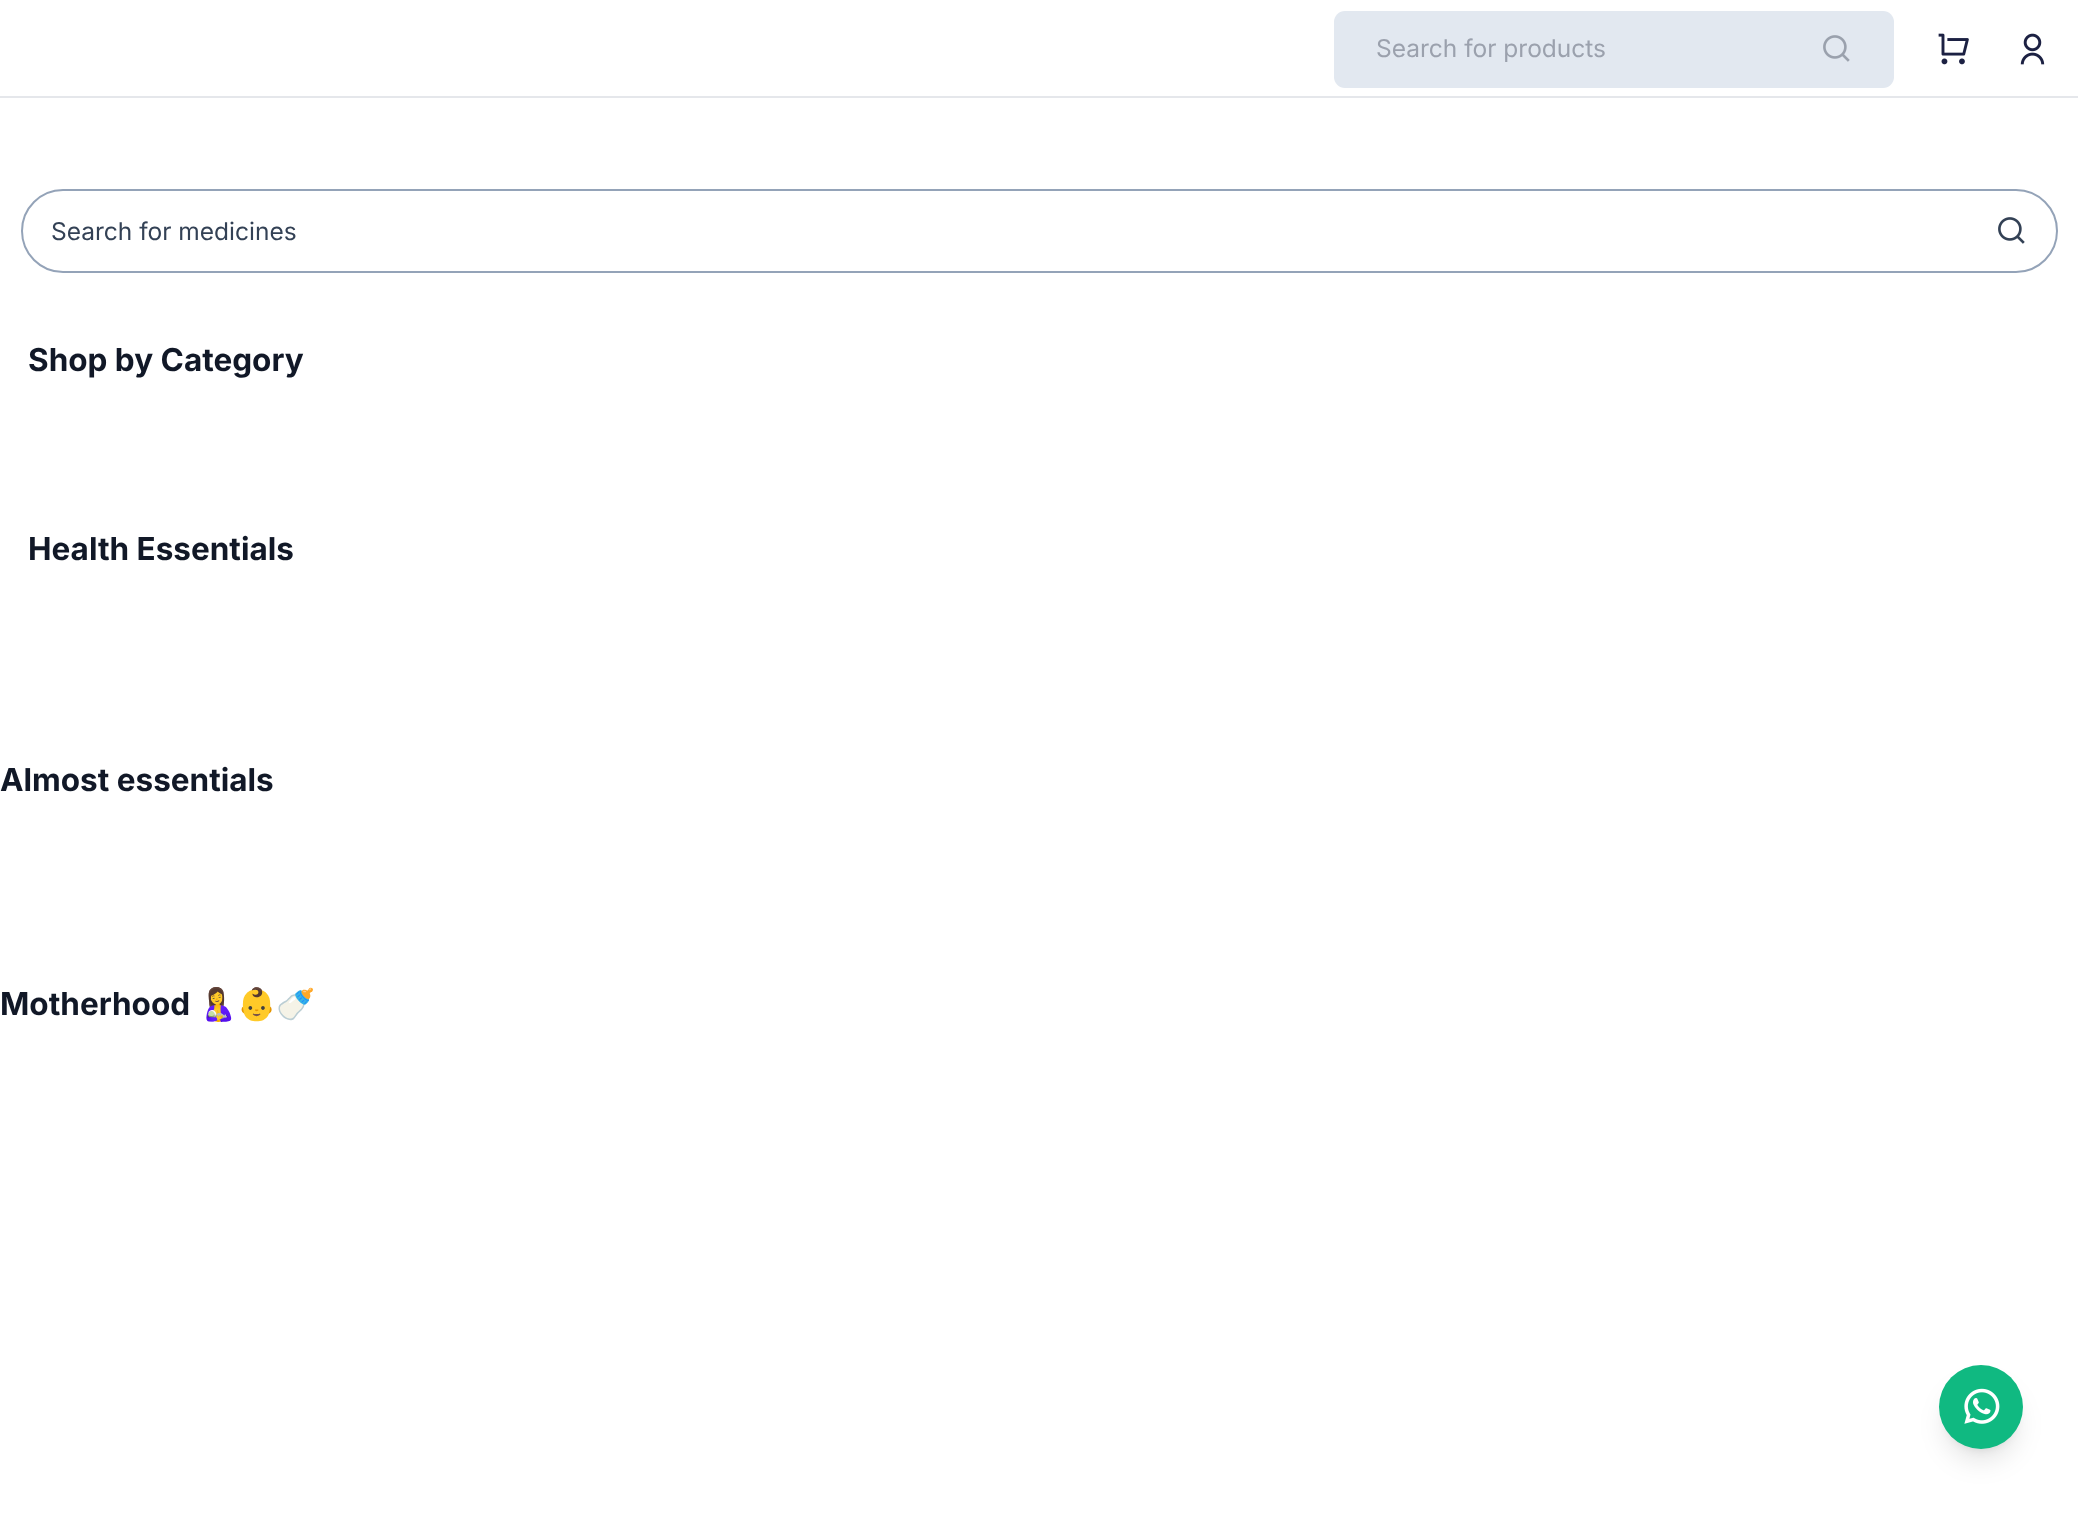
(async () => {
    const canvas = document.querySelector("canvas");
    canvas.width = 2078;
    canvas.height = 1533;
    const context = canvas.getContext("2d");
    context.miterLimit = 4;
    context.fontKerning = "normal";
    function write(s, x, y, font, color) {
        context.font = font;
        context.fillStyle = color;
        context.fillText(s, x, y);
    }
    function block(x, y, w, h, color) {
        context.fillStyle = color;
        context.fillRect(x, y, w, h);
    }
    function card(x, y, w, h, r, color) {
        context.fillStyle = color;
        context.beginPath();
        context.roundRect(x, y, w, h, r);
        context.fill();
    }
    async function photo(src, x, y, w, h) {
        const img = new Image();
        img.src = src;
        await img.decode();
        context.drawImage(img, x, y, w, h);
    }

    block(0, 0, 2078, 1533, "rgb(255, 255, 255)");
    block(0, 96, 2078, 2, "rgb(229, 231, 235)");
    card(1334, 11, 560, 77, 11, "rgb(226, 232, 240)");
    write("Search for products", 1376, 57, "24.5px Inter", "rgb(155, 161, 173)");
    await photo("media/1.png", 1823, 35, 27, 27);
    await photo("media/2.png", 1938, 33, 31, 32);
    await photo("media/3.png", 2020, 33, 25, 32);
    context.beginPath();
    context.roundRect(22, 190, 2035, 82, 41);
    context.strokeStyle = "rgb(148, 163, 184)";
    context.lineWidth = 2;
    context.stroke();
    write("Search for medicines", 51, 240, "24.5px Inter", "rgb(51, 65, 85)");
    await photo("media/4.png", 1998, 217, 27, 27);
    write("Shop by Category", 28, 371, "bold 31.5px Inter", "rgb(17, 24, 39)");
    write("Health Essentials", 28, 560, "bold 31.5px Inter", "rgb(17, 24, 39)");
    write("Almost essentials", 0, 791, "bold 31.5px Inter", "rgb(17, 24, 39)");
    write("Motherhood", 0, 1015, "bold 31.5px Inter", "rgb(17, 24, 39)");
    write("🤱👶🍼", 198, 1015, "bold 31.5px Noto Color Emoji", "rgb(17, 24, 39)");
    context.fillStyle = "rgba(0, 0, 0, 0.1)";
    context.filter = "blur(5px)";
    context.beginPath();
    context.roundRect(1946, 1379, 70, 70, 35);
    context.fill();
    context.filter = "none";
    context.filter = "blur(13px)";
    context.beginPath();
    context.roundRect(1944, 1388, 74, 73, 36.5);
    context.fill();
    context.filter = "none";
    context.fillStyle = "rgb(16, 185, 129)";
    context.beginPath();
    context.arc(1981, 1407, 42, 0, Math.PI * 2);
    context.fill();
    await photo("media/5.png", 1964, 1388, 36, 36);
})();
